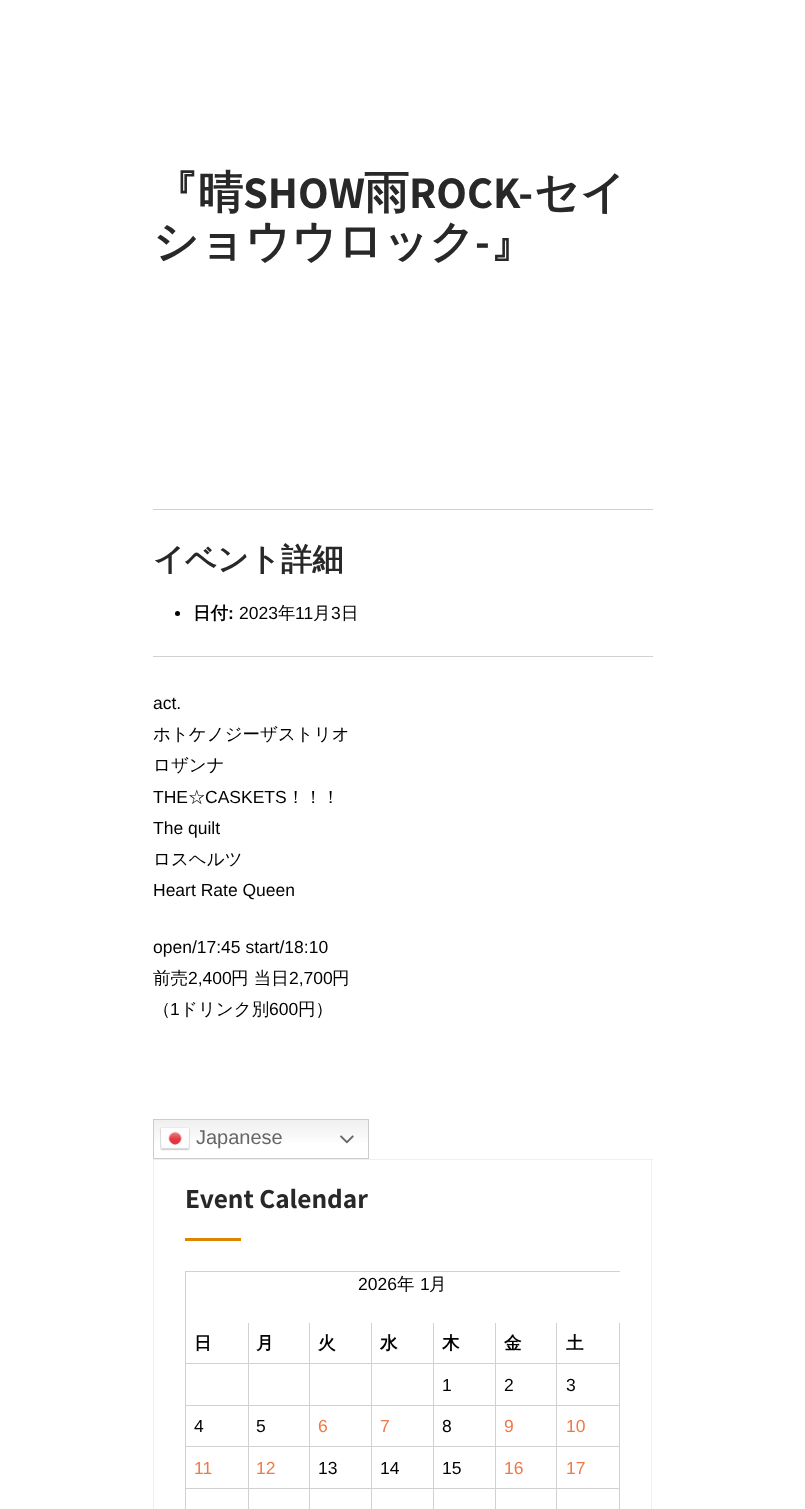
(async () => {
    const canvas = document.querySelector("canvas");
    canvas.width = 805;
    canvas.height = 1509;
    const context = canvas.getContext("2d");
    context.miterLimit = 4;
    context.fontKerning = "normal";
    function write(s, x, y, font, color) {
        context.font = font;
        context.fillStyle = color;
        context.fillText(s, x, y);
    }
    function block(x, y, w, h, color) {
        context.fillStyle = color;
        context.fillRect(x, y, w, h);
    }
    async function photo(src, x, y, w, h) {
        const img = new Image();
        img.src = src;
        await img.decode();
        context.drawImage(img, x, y, w, h);
    }
    let gradient;

    block(0, 0, 805, 1509, "rgb(255, 255, 255)");
    write("『晴", 153, 208, "bold 45px WenQuanYi Zen Hei", "rgb(40, 40, 40)");
    write("SHOW", 243, 208, "bold 45px Assistant", "rgb(40, 40, 40)");
    write("雨", 364, 208, "bold 45px WenQuanYi Zen Hei", "rgb(40, 40, 40)");
    write("ROCK-", 409, 208, "bold 45px Assistant", "rgb(40, 40, 40)");
    write("セイ", 534, 208, "bold 45px WenQuanYi Zen Hei", "rgb(40, 40, 40)");
    write("ショウウロック", 153, 257, "bold 45px WenQuanYi Zen Hei", "rgb(40, 40, 40)");
    write("-", 475, 257, "bold 45px Assistant", "rgb(40, 40, 40)");
    write("』", 490, 257, "bold 45px WenQuanYi Zen Hei", "rgb(40, 40, 40)");
    block(153, 509, 500, 1, "rgb(209, 209, 209)");
    write("イベント詳細", 153, 570, "bold 31.25px WenQuanYi Zen Hei", "rgb(40, 40, 40)");
    context.fillStyle = "rgb(0, 0, 0)";
    context.beginPath();
    context.arc(177.5, 613.5, 2.5, 0, Math.PI * 2);
    context.fill();
    write("日付", 193, 619, "bold 17.5px WenQuanYi Zen Hei", "rgb(0, 0, 0)");
    write(":", 228, 619, "bold 17.5px Liberation Sans", "rgb(0, 0, 0)");
    write("2023", 239, 619, "17.5px Liberation Sans", "rgb(0, 0, 0)");
    write("年", 278, 619, "500 17.5px WenQuanYi Zen Hei", "rgb(0, 0, 0)");
    write("11", 295, 619, "17.5px Liberation Sans", "rgb(0, 0, 0)");
    write("月", 313, 619, "500 17.5px WenQuanYi Zen Hei", "rgb(0, 0, 0)");
    write("3", 331, 619, "17.5px Liberation Sans", "rgb(0, 0, 0)");
    write("日", 341, 619, "500 17.5px WenQuanYi Zen Hei", "rgb(0, 0, 0)");
    block(153, 656, 500, 1, "rgb(209, 209, 209)");
    write("act.", 153, 709, "17.5px Liberation Sans", "rgb(0, 0, 0)");
    write("ホトケノジーザストリオ", 153, 740, "500 17.5px WenQuanYi Zen Hei", "rgb(0, 0, 0)");
    write("ロザンナ", 153, 771, "500 17.5px WenQuanYi Zen Hei", "rgb(0, 0, 0)");
    write("THE", 153, 803, "17.5px Liberation Sans", "rgb(0, 0, 0)");
    write("☆", 188, 803, "500 17.5px WenQuanYi Zen Hei", "rgb(0, 0, 0)");
    write("CASKETS", 205, 803, "17.5px Liberation Sans", "rgb(0, 0, 0)");
    write("！！！", 287, 803, "500 17.5px WenQuanYi Zen Hei", "rgb(0, 0, 0)");
    write("The quilt", 153, 834, "17.5px Liberation Sans", "rgb(0, 0, 0)");
    write("ロスヘルツ", 153, 865, "500 17.5px WenQuanYi Zen Hei", "rgb(0, 0, 0)");
    write("Heart Rate Queen", 153, 896, "17.5px Liberation Sans", "rgb(0, 0, 0)");
    write("open/17:45 start/18:10", 153, 953, "17.5px Liberation Sans", "rgb(0, 0, 0)");
    write("前売", 153, 984, "500 17.5px WenQuanYi Zen Hei", "rgb(0, 0, 0)");
    write("2,400", 188, 984, "17.5px Liberation Sans", "rgb(0, 0, 0)");
    write("円 当日", 231, 984, "500 17.5px WenQuanYi Zen Hei", "rgb(0, 0, 0)");
    write("2,700", 289, 984, "17.5px Liberation Sans", "rgb(0, 0, 0)");
    write("円", 332, 984, "500 17.5px WenQuanYi Zen Hei", "rgb(0, 0, 0)");
    write("（", 153, 1015, "500 17.5px WenQuanYi Zen Hei", "rgb(0, 0, 0)");
    write("1", 170, 1015, "17.5px Liberation Sans", "rgb(0, 0, 0)");
    write("ドリンク別", 180, 1015, "500 17.5px WenQuanYi Zen Hei", "rgb(0, 0, 0)");
    write("600", 269, 1015, "17.5px Liberation Sans", "rgb(0, 0, 0)");
    write("円）", 298, 1015, "500 17.5px WenQuanYi Zen Hei", "rgb(0, 0, 0)");
    gradient = context.createLinearGradient(261, 1119, 261, 1159);
    gradient.addColorStop(0, "rgb(239, 239, 239)");
    gradient.addColorStop(0.7, "rgb(255, 255, 255)");
    context.fillStyle = gradient;
    context.fillRect(154, 1120, 214, 23);
    context.strokeStyle = "rgb(204, 204, 204)";
    context.strokeRect(153.5, 1119.5, 215, 39);
    await photo("media/1.png", 160, 1127, 30, 24);
    write("Japanese", 196, 1144, "20px Liberation Sans", "rgb(102, 102, 102)");
    await photo("media/2.png", 340, 1135, 14, 9);
    block(153, 1159, 500, 1, "rgb(238, 239, 245)");
    block(651, 1159, 1, 350, "rgb(238, 239, 245)");
    block(153, 1159, 1, 350, "rgb(238, 239, 245)");
    write("Event Calendar", 185, 1208, "bold 27.5px Assistant", "rgb(40, 40, 40)");
    block(185, 1238, 56, 3, "rgb(221, 133, 0)");
    block(185, 1271, 435, 1, "rgb(209, 209, 209)");
    block(185, 1271, 1, 238, "rgb(209, 209, 209)");
    write("2026", 358, 1290, "17.5px Liberation Sans", "rgb(0, 0, 0)");
    write("年", 397, 1290, "500 17.5px WenQuanYi Zen Hei", "rgb(0, 0, 0)");
    write("1", 420, 1290, "17.5px Liberation Sans", "rgb(0, 0, 0)");
    write("月", 429, 1290, "500 17.5px WenQuanYi Zen Hei", "rgb(0, 0, 0)");
    block(248, 1323, 1, 186, "rgb(209, 209, 209)");
    block(186, 1363, 63, 1, "rgb(209, 209, 209)");
    write("日", 194, 1349, "bold 17.5px WenQuanYi Zen Hei", "rgb(0, 0, 0)");
    block(309, 1323, 1, 186, "rgb(209, 209, 209)");
    block(249, 1363, 61, 1, "rgb(209, 209, 209)");
    write("月", 256, 1349, "bold 17.5px WenQuanYi Zen Hei", "rgb(0, 0, 0)");
    block(371, 1323, 1, 186, "rgb(209, 209, 209)");
    block(310, 1363, 63, 1, "rgb(209, 209, 209)");
    write("火", 318, 1349, "bold 17.5px WenQuanYi Zen Hei", "rgb(0, 0, 0)");
    block(433, 1323, 1, 186, "rgb(209, 209, 209)");
    block(373, 1363, 61, 1, "rgb(209, 209, 209)");
    write("水", 380, 1349, "bold 17.5px WenQuanYi Zen Hei", "rgb(0, 0, 0)");
    block(495, 1323, 1, 186, "rgb(209, 209, 209)");
    block(434, 1363, 62, 1, "rgb(209, 209, 209)");
    write("木", 442, 1349, "bold 17.5px WenQuanYi Zen Hei", "rgb(0, 0, 0)");
    block(556, 1323, 1, 186, "rgb(209, 209, 209)");
    block(496, 1363, 62, 1, "rgb(209, 209, 209)");
    write("金", 504, 1349, "bold 17.5px WenQuanYi Zen Hei", "rgb(0, 0, 0)");
    block(619, 1323, 1, 186, "rgb(209, 209, 209)");
    block(558, 1363, 62, 1, "rgb(209, 209, 209)");
    write("土", 566, 1349, "bold 17.5px WenQuanYi Zen Hei", "rgb(0, 0, 0)");
    write("1", 442, 1391, "17.5px Liberation Sans", "rgb(0, 0, 0)");
    write("2", 504, 1391, "17.5px Liberation Sans", "rgb(0, 0, 0)");
    write("3", 566, 1391, "17.5px Liberation Sans", "rgb(0, 0, 0)");
    block(186, 1405, 434, 1, "rgb(209, 209, 209)");
    block(186, 1446, 434, 1, "rgb(209, 209, 209)");
    write("4", 194, 1432, "17.5px Liberation Sans", "rgb(0, 0, 0)");
    write("5", 256, 1432, "17.5px Liberation Sans", "rgb(0, 0, 0)");
    write("6", 318, 1432, "17.5px Liberation Sans", "rgb(238, 121, 72)");
    write("7", 380, 1432, "17.5px Liberation Sans", "rgb(238, 121, 72)");
    write("8", 442, 1432, "17.5px Liberation Sans", "rgb(0, 0, 0)");
    write("9", 504, 1432, "17.5px Liberation Sans", "rgb(238, 121, 72)");
    write("10", 566, 1432, "17.5px Liberation Sans", "rgb(238, 121, 72)");
    block(186, 1488, 434, 1, "rgb(209, 209, 209)");
    write("11", 194, 1474, "17.5px Liberation Sans", "rgb(238, 121, 72)");
    write("12", 256, 1474, "17.5px Liberation Sans", "rgb(238, 121, 72)");
    write("13", 318, 1474, "17.5px Liberation Sans", "rgb(0, 0, 0)");
    write("14", 380, 1474, "17.5px Liberation Sans", "rgb(0, 0, 0)");
    write("15", 442, 1474, "17.5px Liberation Sans", "rgb(0, 0, 0)");
    write("16", 504, 1474, "17.5px Liberation Sans", "rgb(238, 121, 72)");
    write("17", 566, 1474, "17.5px Liberation Sans", "rgb(238, 121, 72)");
})();
